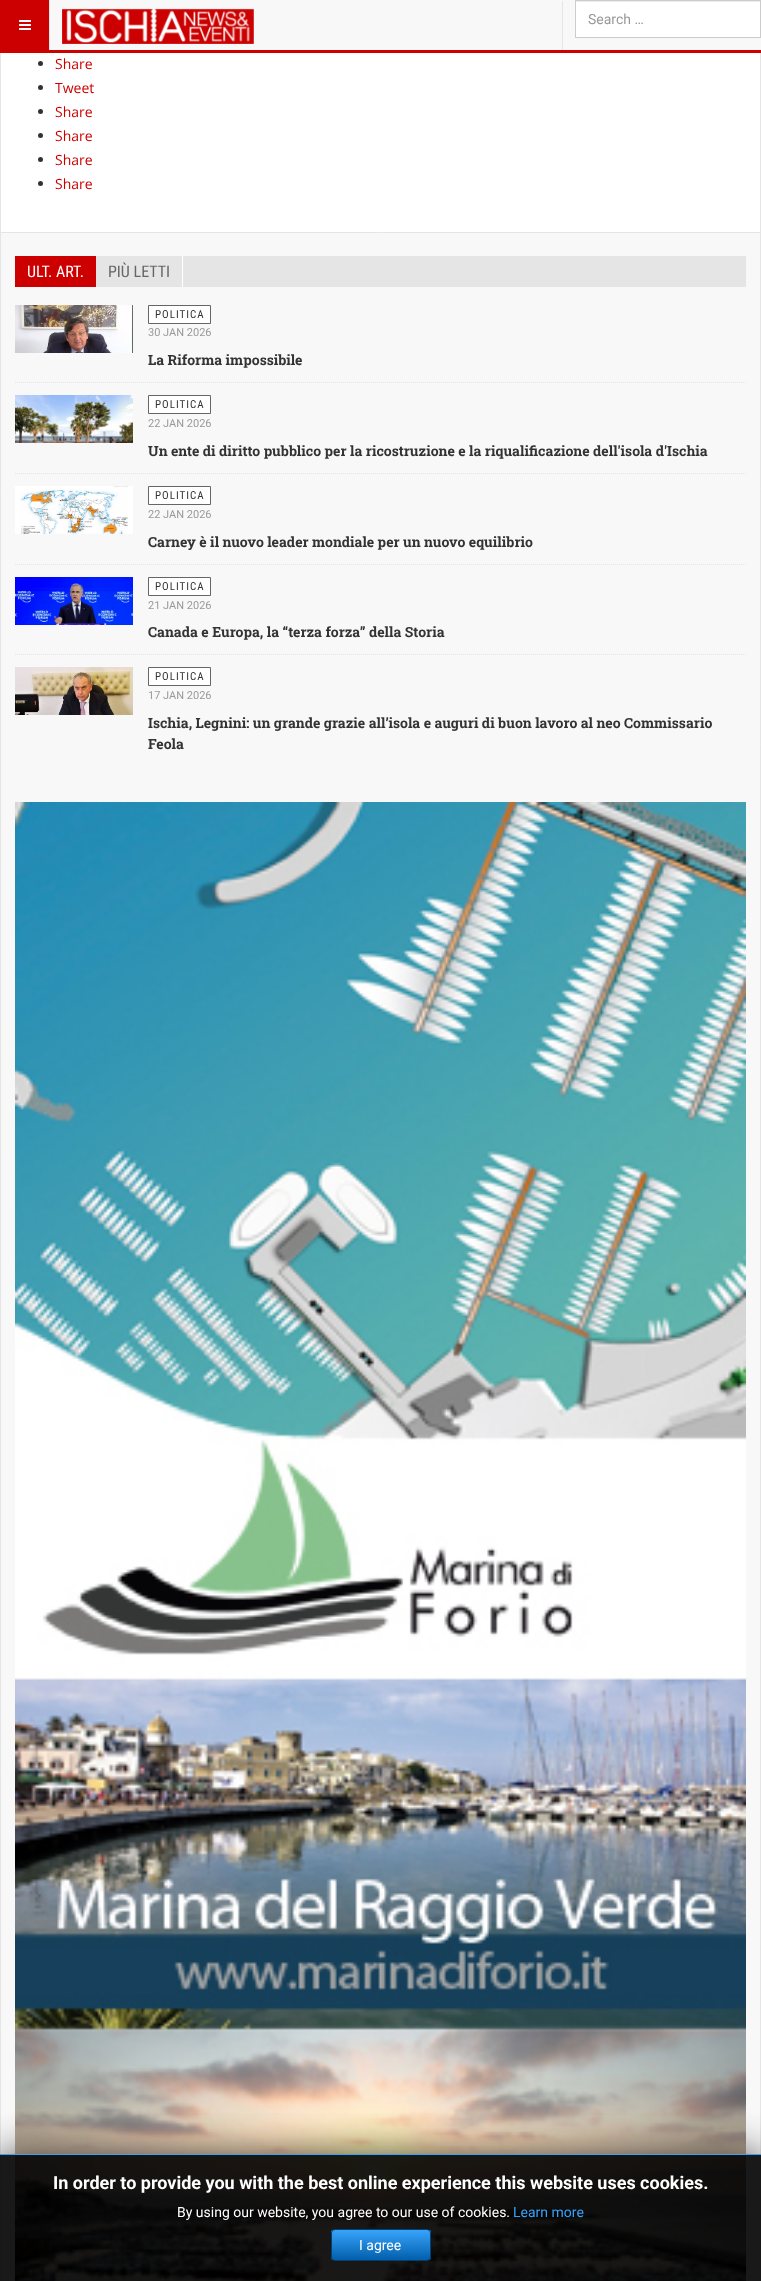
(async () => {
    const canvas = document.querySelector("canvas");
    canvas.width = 761;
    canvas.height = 2281;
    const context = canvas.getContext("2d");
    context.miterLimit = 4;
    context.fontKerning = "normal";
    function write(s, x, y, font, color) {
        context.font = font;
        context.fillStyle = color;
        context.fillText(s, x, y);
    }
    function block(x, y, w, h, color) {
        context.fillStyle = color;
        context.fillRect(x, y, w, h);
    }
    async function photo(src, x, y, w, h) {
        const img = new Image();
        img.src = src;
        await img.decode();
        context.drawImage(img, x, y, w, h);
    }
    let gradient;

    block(0, 0, 761, 2281, "rgb(255, 255, 255)");
    context.strokeStyle = "rgb(229, 229, 229)";
    context.strokeRect(0.5, -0.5, 760, 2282);
    block(50, 0, 711, 50, "rgb(248, 248, 248)");
    block(0, 50, 761, 3, "rgb(204, 0, 0)");
    block(0, 0, 49, 50, "rgb(204, 0, 0)");
    block(49, 0, 1, 50, "rgb(229, 229, 229)");
    await photo("media/1.png", 19, 20, 12, 10);
    await photo("media/2.png", 62, 8, 192, 36);
    block(562, 1, 1, 49, "rgb(229, 229, 229)");
    block(576, 2, 184, 35, "rgb(255, 255, 255)");
    block(576, 1, 184, 1, "rgb(236, 236, 236)");
    context.strokeStyle = "rgb(204, 204, 204)";
    context.strokeRect(575.5, 0.5, 185, 37);
    write("Search …", 588, 24, "14px Roboto", "rgb(153, 153, 153)");
    context.fillStyle = "rgb(51, 51, 51)";
    context.beginPath();
    context.arc(40.5, 63.5, 2.5, 0, Math.PI * 2);
    context.fill();
    write("Share", 55, 69, "14px Open Sans", "rgb(204, 0, 0)");
    context.fillStyle = "rgb(51, 51, 51)";
    context.beginPath();
    context.arc(40.5, 87.5, 2.5, 0, Math.PI * 2);
    context.fill();
    write("Tweet", 55, 93, "14px Open Sans", "rgb(204, 0, 0)");
    context.fillStyle = "rgb(51, 51, 51)";
    context.beginPath();
    context.arc(40.5, 111.5, 2.5, 0, Math.PI * 2);
    context.fill();
    write("Share", 55, 117, "14px Open Sans", "rgb(204, 0, 0)");
    context.fillStyle = "rgb(51, 51, 51)";
    context.beginPath();
    context.arc(40.5, 135.5, 2.5, 0, Math.PI * 2);
    context.fill();
    write("Share", 55, 141, "14px Open Sans", "rgb(204, 0, 0)");
    context.fillStyle = "rgb(51, 51, 51)";
    context.beginPath();
    context.arc(40.5, 159.5, 2.5, 0, Math.PI * 2);
    context.fill();
    write("Share", 55, 165, "14px Open Sans", "rgb(204, 0, 0)");
    context.fillStyle = "rgb(51, 51, 51)";
    context.beginPath();
    context.arc(40.5, 183.5, 2.5, 0, Math.PI * 2);
    context.fill();
    write("Share", 55, 189, "14px Open Sans", "rgb(204, 0, 0)");
    context.fillStyle = "rgb(248, 248, 248)";
    context.beginPath();
    context.rect(0.5, 232.5, 760, 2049);
    context.fill();
    context.strokeStyle = "rgb(229, 229, 229)";
    context.stroke();
    block(96, 256, 650, 31, "rgb(229, 229, 229)");
    block(15, 256, 81, 31, "rgb(204, 0, 0)");
    write("ULT. ART.", 27, 277, "16px Roboto Condensed", "rgb(255, 255, 255)");
    block(182, 256, 1, 31, "rgb(255, 255, 255)");
    write("PIÙ LETTI", 108, 277, "16px Roboto Condensed", "rgb(102, 102, 102)");
    context.beginPath();
    context.moveTo(15, 382.5);
    context.lineTo(746, 382.5);
    context.setLineDash([1, 1]);
    context.stroke();
    await photo("media/3.png", 15, 305, 118, 48);
    context.fillStyle = "rgb(255, 255, 255)";
    context.beginPath();
    context.rect(148.5, 305.5, 62, 18);
    context.fill();
    context.strokeStyle = "rgb(102, 102, 102)";
    context.setLineDash([]);
    context.stroke();
    context.letterSpacing = "1px";
    write("POLITICA", 155, 318, "11px Roboto Condensed", "rgb(51, 51, 51)");
    context.letterSpacing = "0px";
    write("30 JAN 2026", 148, 336, "11px Roboto", "rgb(153, 153, 153)");
    write("La Riforma impossibile", 148, 365, "bold 14px Roboto Slab", "rgb(51, 51, 51)");
    context.beginPath();
    context.moveTo(15, 473.5);
    context.lineTo(746, 473.5);
    context.strokeStyle = "rgb(229, 229, 229)";
    context.setLineDash([1, 1]);
    context.stroke();
    await photo("media/4.png", 15, 395, 118, 48);
    context.fillStyle = "rgb(255, 255, 255)";
    context.beginPath();
    context.rect(148.5, 395.5, 62, 18);
    context.fill();
    context.strokeStyle = "rgb(102, 102, 102)";
    context.setLineDash([]);
    context.stroke();
    context.letterSpacing = "1px";
    write("POLITICA", 155, 408, "11px Roboto Condensed", "rgb(51, 51, 51)");
    context.letterSpacing = "0px";
    write("22 JAN 2026", 148, 427, "11px Roboto", "rgb(153, 153, 153)");
    write("Un ente di diritto pubblico per la ricostruzione e la riqualificazione dell'isola d'Ischia", 148, 456, "bold 14px Roboto Slab", "rgb(51, 51, 51)");
    context.beginPath();
    context.moveTo(15, 564.5);
    context.lineTo(746, 564.5);
    context.strokeStyle = "rgb(229, 229, 229)";
    context.setLineDash([1, 1]);
    context.stroke();
    await photo("media/5.png", 15, 486, 118, 48);
    context.fillStyle = "rgb(255, 255, 255)";
    context.beginPath();
    context.rect(148.5, 486.5, 62, 18);
    context.fill();
    context.strokeStyle = "rgb(102, 102, 102)";
    context.setLineDash([]);
    context.stroke();
    context.letterSpacing = "1px";
    write("POLITICA", 155, 499, "11px Roboto Condensed", "rgb(51, 51, 51)");
    context.letterSpacing = "0px";
    write("22 JAN 2026", 148, 518, "11px Roboto", "rgb(153, 153, 153)");
    write("Carney è il nuovo leader mondiale per un nuovo equilibrio", 148, 547, "bold 14px Roboto Slab", "rgb(51, 51, 51)");
    context.beginPath();
    context.moveTo(15, 654.5);
    context.lineTo(746, 654.5);
    context.strokeStyle = "rgb(229, 229, 229)";
    context.setLineDash([1, 1]);
    context.stroke();
    await photo("media/6.png", 15, 577, 118, 48);
    context.fillStyle = "rgb(255, 255, 255)";
    context.beginPath();
    context.rect(148.5, 577.5, 62, 18);
    context.fill();
    context.strokeStyle = "rgb(102, 102, 102)";
    context.setLineDash([]);
    context.stroke();
    context.letterSpacing = "1px";
    write("POLITICA", 155, 590, "11px Roboto Condensed", "rgb(51, 51, 51)");
    context.letterSpacing = "0px";
    write("21 JAN 2026", 148, 609, "11px Roboto", "rgb(153, 153, 153)");
    write("Canada e Europa, la “terza forza” della Storia", 148, 637, "bold 14px Roboto Slab", "rgb(51, 51, 51)");
    await photo("media/7.png", 15, 667, 118, 48);
    context.fillStyle = "rgb(255, 255, 255)";
    context.beginPath();
    context.rect(148.5, 667.5, 62, 18);
    context.fill();
    context.stroke();
    context.letterSpacing = "1px";
    write("POLITICA", 155, 680, "11px Roboto Condensed", "rgb(51, 51, 51)");
    context.letterSpacing = "0px";
    write("17 JAN 2026", 148, 699, "11px Roboto", "rgb(153, 153, 153)");
    write("Ischia, Legnini: un grande grazie all’isola e auguri di buon lavoro al neo Commissario", 148, 728, "bold 14px Roboto Slab", "rgb(51, 51, 51)");
    write("Feola", 148, 749, "bold 14px Roboto Slab", "rgb(51, 51, 51)");
    await photo("media/8.png", 15, 802, 731, 1479);
    context.save();
    context.beginPath();
    context.rect(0, 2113, 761, 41);
    context.clip();
    context.fillStyle = "rgb(68, 68, 68)";
    context.filter = "blur(20px)";
    context.beginPath();
    context.rect(0, 2154, 761, 127);
    context.fill();
    context.filter = "none";
    context.restore();
    block(0, 2154, 761, 1, "rgb(55, 164, 252)");
    block(0, 2155, 761, 126, "rgba(0, 0, 0, 0.9)");
    write("In order to provide you with the best online experience this website uses cookies.", 53, 2189, "bold 18px Roboto", "rgb(255, 255, 255)");
    write("By using our website, you agree to our use of cookies.", 177, 2217, "14px Roboto", "rgb(255, 255, 255)");
    write("Learn more", 513, 2217, "14px Roboto", "rgb(55, 164, 252)");
    context.save();
    context.beginPath();
    context.roundRect(331, 2229, 100, 32, 4);
    context.clip();
    gradient = context.createLinearGradient(381, 2230, 381, 2260);
    gradient.addColorStop(0, "rgb(55, 164, 252)");
    gradient.addColorStop(1, "rgb(2, 95, 171)");
    context.fillStyle = gradient;
    context.fillRect(331, 2230, 100, 30);
    context.restore();
    context.beginPath();
    context.roundRect(331.5, 2229.5, 99, 31, 3.5);
    context.strokeStyle = "rgb(2, 65, 117)";
    context.stroke();
    write("I agree", 359, 2250, "14px Roboto", "rgb(255, 255, 255)");
})();
